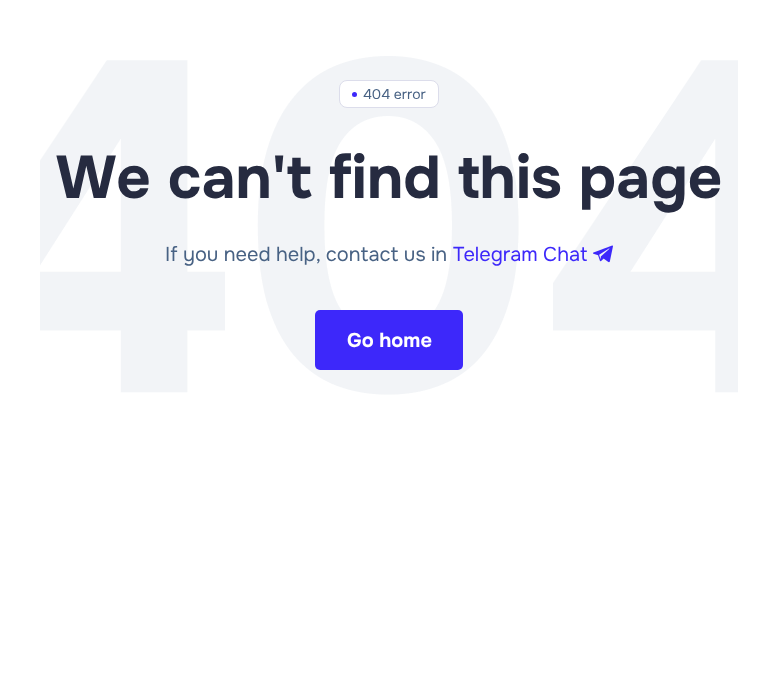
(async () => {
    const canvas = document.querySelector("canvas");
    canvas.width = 778;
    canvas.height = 699;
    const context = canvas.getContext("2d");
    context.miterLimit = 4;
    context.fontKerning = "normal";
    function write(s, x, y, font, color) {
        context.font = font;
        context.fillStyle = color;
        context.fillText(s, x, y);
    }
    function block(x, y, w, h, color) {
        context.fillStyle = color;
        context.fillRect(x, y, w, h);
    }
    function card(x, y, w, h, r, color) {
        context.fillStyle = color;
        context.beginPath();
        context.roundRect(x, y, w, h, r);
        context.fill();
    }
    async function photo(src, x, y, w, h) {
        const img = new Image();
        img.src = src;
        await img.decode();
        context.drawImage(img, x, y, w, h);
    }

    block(0, 0, 778, 699, "rgb(255, 255, 255)");
    await photo("media/1.png", 40, 56, 698, 339);
    context.beginPath();
    context.roundRect(339.5, 80.5, 99, 27, 7.5);
    context.fill();
    context.strokeStyle = "rgb(220, 221, 235)";
    context.stroke();
    context.fillStyle = "rgb(61, 40, 250)";
    context.beginPath();
    context.arc(354.5, 94.5, 2.5, 0, Math.PI * 2);
    context.fill();
    write("404 error", 363, 99, "14px Onest", "rgb(72, 98, 132)");
    write("We can't find this page", 56, 198, "bold 60px Onest", "rgb(38, 43, 64)");
    write("If you need help, contact us in", 165, 261, "20px Onest", "rgb(72, 98, 132)");
    write("Telegram Chat", 453, 261, "20px Onest", "rgb(61, 40, 250)");
    await photo("media/2.png", 593, 245, 20, 18);
    card(315, 310, 148, 60, 5, "rgb(61, 40, 250)");
    write("Go home", 347, 347, "bold 20px 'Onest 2'", "rgb(255, 255, 255)");
})();
